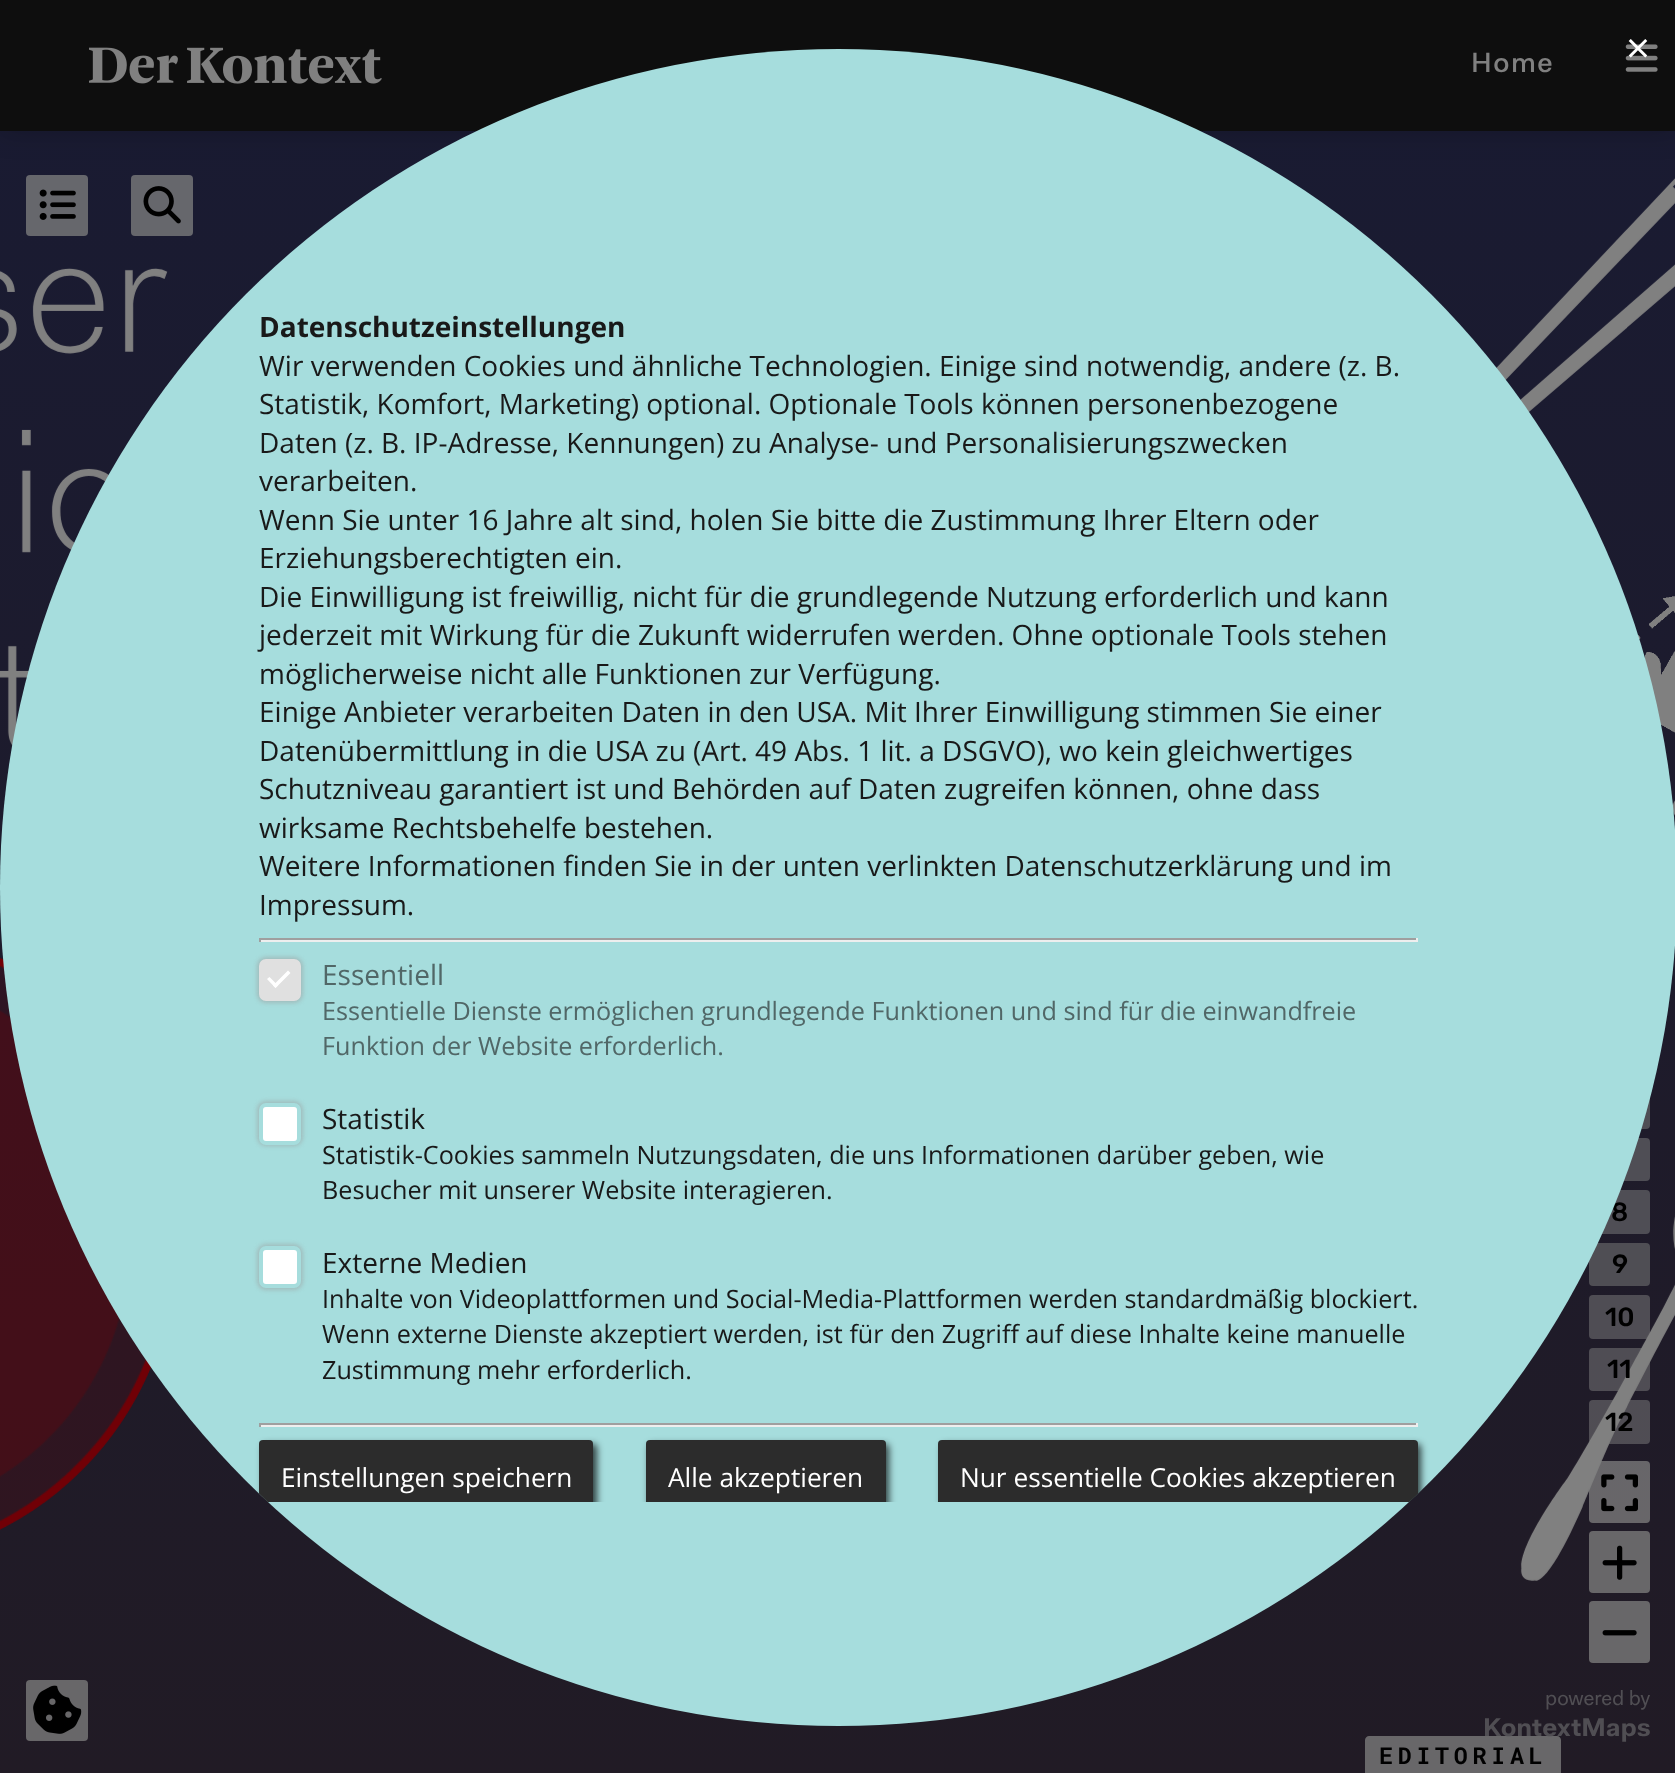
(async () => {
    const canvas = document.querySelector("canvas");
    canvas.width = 1675;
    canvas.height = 1773;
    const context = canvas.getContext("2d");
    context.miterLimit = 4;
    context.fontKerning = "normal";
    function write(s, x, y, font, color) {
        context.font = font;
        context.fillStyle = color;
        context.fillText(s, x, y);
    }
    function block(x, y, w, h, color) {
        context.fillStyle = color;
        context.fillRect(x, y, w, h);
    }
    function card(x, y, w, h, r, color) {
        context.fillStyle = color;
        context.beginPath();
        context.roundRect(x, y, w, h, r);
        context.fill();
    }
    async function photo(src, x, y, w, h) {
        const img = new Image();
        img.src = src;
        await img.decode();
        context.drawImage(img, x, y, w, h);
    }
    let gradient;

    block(0, 0, 1675, 1773, "rgb(255, 255, 255)");
    gradient = context.createLinearGradient(838, 0, 838, 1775);
    gradient.addColorStop(0, "rgb(25, 27, 51)");
    gradient.addColorStop(1, "rgb(33, 27, 37)");
    context.fillStyle = gradient;
    context.fillRect(0, 131, 1675, 1642);
    context.fillStyle = "rgba(0, 0, 0, 0.2)";
    context.filter = "blur(14px)";
    context.beginPath();
    context.rect(0, 0, 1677, 131);
    context.fill();
    context.filter = "none";
    block(0, 0, 1675, 131, "rgb(14, 14, 14)");
    await photo("media/2.png", 1625, 44, 33, 28);
    write("×", 1626, 63, "42px Open Sans", "rgb(255, 255, 255)");
    await photo("media/1.png", 89, 47, 293, 37);
    context.letterSpacing = "1.5px";
    write("Home", 1471, 72, "500 28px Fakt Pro", "rgb(128, 128, 128)");
    await photo("media/5.png", 0, 178, 1675, 1403);
    card(26, 175, 62, 61, 4, "rgb(102, 103, 108)");
    await photo("media/3.png", 39, 189, 37, 31);
    card(131, 175, 62, 61, 4, "rgb(102, 103, 108)");
    await photo("media/4.png", 143, 186, 38, 38);
    await photo("media/6.png", 1638, 596, 37, 137);
    await photo("media/7.png", 0, 957, 152, 573);
    card(1589, 1085, 61, 44, 4, "rgb(79, 78, 85)");
    card(1589, 1138, 61, 43, 4, "rgb(79, 78, 85)");
    card(1589, 1190, 61, 44, 4, "rgb(79, 78, 85)");
    context.letterSpacing = "0px";
    write("8", 1611, 1221, "300 26.25px Rubik", "rgb(0, 0, 0)");
    card(1589, 1243, 61, 43, 4, "rgb(79, 78, 84)");
    write("9", 1612, 1273, "300 26.25px Rubik", "rgb(0, 0, 0)");
    card(1589, 1295, 61, 44, 4, "rgba(128, 128, 128, 0.5)");
    write("10", 1605, 1326, "300 26.25px Rubik", "rgb(0, 0, 0)");
    card(1589, 1348, 61, 43, 4, "rgba(128, 128, 128, 0.5)");
    write("11", 1607, 1378, "300 26.25px Rubik", "rgb(0, 0, 0)");
    card(1589, 1400, 61, 44, 4, "rgba(128, 128, 128, 0.5)");
    write("12", 1605, 1431, "300 26.25px Rubik", "rgb(0, 0, 0)");
    card(1589, 1461, 61, 62, 4, "rgba(128, 128, 128, 0.75)");
    await photo("media/8.png", 1601, 1474, 37, 38);
    card(1589, 1531, 61, 62, 4, "rgb(104, 103, 105)");
    await photo("media/9.png", 1602, 1545, 35, 35);
    card(1589, 1601, 61, 62, 4, "rgb(104, 103, 105)");
    await photo("media/10.png", 1602, 1630, 35, 6);
    card(26, 1680, 62, 61, 4, "rgb(104, 103, 105)");
    await photo("media/11.png", 33, 1685, 49, 49);
    write("powered by", 1545, 1705, "20.5px Fakt Pro", "rgb(80, 78, 83)");
    context.fillStyle = "rgb(104, 103, 105)";
    context.beginPath();
    context.moveTo(1369, 1736);
    context.lineTo(1557, 1736);
    context.bezierCurveTo(1559, 1736, 1561, 1738, 1561, 1740);
    context.lineTo(1561, 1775);
    context.lineTo(1365, 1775);
    context.lineTo(1365, 1740);
    context.bezierCurveTo(1365, 1738, 1367, 1736, 1369, 1736);
    context.closePath();
    context.fill();
    write("KontextMaps", 1483, 1736, "bold 25.75px Fakt Pro", "rgb(80, 78, 83)");
    context.fillStyle = "rgb(166, 221, 221)";
    context.beginPath();
    context.arc(838.5, 887.5, 838.5, 0, Math.PI * 2);
    context.fill();
    write("Datenschutzeinstellungen", 259, 337, "bold 28px Open Sans", "rgb(25, 25, 25)");
    write("Wir verwenden Cookies und ähnliche Technologien. Einige sind notwendig, andere (z. B.", 259, 376, "28px Open Sans", "rgb(25, 25, 25)");
    write("Statistik, Komfort, Marketing) optional. Optionale Tools können personenbezogene", 259, 414, "28px Open Sans", "rgb(25, 25, 25)");
    write("Daten (z. B. IP-Adresse, Kennungen) zu Analyse- und Personalisierungszwecken", 259, 453, "28px Open Sans", "rgb(25, 25, 25)");
    write("verarbeiten.", 259, 491, "28px Open Sans", "rgb(25, 25, 25)");
    write("Wenn Sie unter 16 Jahre alt sind, holen Sie bitte die Zustimmung Ihrer Eltern oder", 259, 530, "28px Open Sans", "rgb(25, 25, 25)");
    write("Erziehungsberechtigten ein.", 259, 568, "28px Open Sans", "rgb(25, 25, 25)");
    write("Die Einwilligung ist freiwillig, nicht für die grundlegende Nutzung erforderlich und kann", 259, 607, "28px Open Sans", "rgb(25, 25, 25)");
    write("jederzeit mit Wirkung für die Zukunft widerrufen werden. Ohne optionale Tools stehen", 259, 645, "28px Open Sans", "rgb(25, 25, 25)");
    write("möglicherweise nicht alle Funktionen zur Verfügung.", 259, 684, "28px Open Sans", "rgb(25, 25, 25)");
    write("Einige Anbieter verarbeiten Daten in den USA. Mit Ihrer Einwilligung stimmen Sie einer", 259, 722, "28px Open Sans", "rgb(25, 25, 25)");
    write("Datenübermittlung in die USA zu (Art. 49 Abs. 1 lit. a DSGVO), wo kein gleichwertiges", 259, 761, "28px Open Sans", "rgb(25, 25, 25)");
    write("Schutzniveau garantiert ist und Behörden auf Daten zugreifen können, ohne dass", 259, 799, "28px Open Sans", "rgb(25, 25, 25)");
    write("wirksame Rechtsbehelfe bestehen.", 259, 838, "28px Open Sans", "rgb(25, 25, 25)");
    write("Weitere Informationen finden Sie in der unten verlinkten Datenschutzerklärung und im", 259, 876, "28px Open Sans", "rgb(25, 25, 25)");
    write("Impressum.", 259, 915, "28px Open Sans", "rgb(25, 25, 25)");
    block(259, 938, 1159, 2, "rgb(159, 159, 159)");
    block(1416, 938, 2, 4, "rgb(238, 238, 238)");
    block(259, 940, 1159, 2, "rgb(238, 238, 238)");
    block(259, 938, 2, 4, "rgb(159, 159, 159)");
    context.fillStyle = "rgba(155, 155, 155, 0.5)";
    context.filter = "blur(2px)";
    context.beginPath();
    context.roundRect(257, 957, 46, 46, 9);
    context.fill();
    context.filter = "none";
    context.fillStyle = "rgb(224, 224, 224)";
    context.beginPath();
    context.roundRect(261, 961, 38, 38, 5);
    context.fill();
    context.strokeStyle = "rgb(224, 224, 224)";
    context.lineWidth = 4;
    context.stroke();
    context.fillStyle = "rgb(255, 255, 255)";
    context.beginPath();
    context.moveTo(288, 970.5);
    context.lineTo(290.5, 973);
    context.lineTo(275.5, 988);
    context.lineTo(273, 985.5);
    context.closePath();
    context.fill();
    context.beginPath();
    context.moveTo(269.5, 977);
    context.lineTo(278, 985.5);
    context.lineTo(275.5, 988);
    context.lineTo(267, 979);
    context.closePath();
    context.fill();
    write("Essentiell", 322, 985, "28px Open Sans", "rgb(81, 103, 103)");
    write("Essentielle Dienste ermöglichen grundlegende Funktionen und sind für die einwandfreie", 322, 1020, "25.2px Open Sans", "rgb(81, 103, 103)");
    write("Funktion der Website erforderlich.", 322, 1055, "25.2px Open Sans", "rgb(81, 103, 103)");
    context.fillStyle = "rgba(155, 155, 155, 0.5)";
    context.filter = "blur(2px)";
    context.beginPath();
    context.roundRect(257, 1101, 46, 45, 9);
    context.fill();
    context.filter = "none";
    context.fillStyle = "rgb(255, 255, 255)";
    context.beginPath();
    context.roundRect(261, 1105, 38, 38, 5);
    context.fill();
    context.strokeStyle = "rgb(166, 221, 221)";
    context.stroke();
    write("Statistik", 322, 1129, "28px Open Sans", "rgb(25, 25, 25)");
    write("Statistik-Cookies sammeln Nutzungsdaten, die uns Informationen darüber geben, wie", 322, 1164, "25.2px Open Sans", "rgb(25, 25, 25)");
    write("Besucher mit unserer Website interagieren.", 322, 1199, "25.2px Open Sans", "rgb(25, 25, 25)");
    context.fillStyle = "rgba(155, 155, 155, 0.5)";
    context.filter = "blur(2px)";
    context.beginPath();
    context.roundRect(257, 1244, 46, 46, 9);
    context.fill();
    context.filter = "none";
    context.fillStyle = "rgb(255, 255, 255)";
    context.beginPath();
    context.roundRect(261, 1248, 38, 38, 5);
    context.fill();
    context.stroke();
    write("Externe Medien", 322, 1273, "28px Open Sans", "rgb(25, 25, 25)");
    write("Inhalte von Videoplattformen und Social-Media-Plattformen werden standardmäßig blockiert.", 322, 1308, "25.2px Open Sans", "rgb(25, 25, 25)");
    write("Wenn externe Dienste akzeptiert werden, ist für den Zugriff auf diese Inhalte keine manuelle", 322, 1343, "25.2px Open Sans", "rgb(25, 25, 25)");
    write("Zustimmung mehr erforderlich.", 322, 1379, "25.2px Open Sans", "rgb(25, 25, 25)");
    block(259, 1423, 1159, 2, "rgb(159, 159, 159)");
    block(1416, 1423, 2, 4, "rgb(238, 238, 238)");
    block(259, 1425, 1159, 2, "rgb(238, 238, 238)");
    block(259, 1423, 2, 4, "rgb(159, 159, 159)");
    context.save();
    context.beginPath();
    context.roundRect(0, 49, 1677, 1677, 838.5);
    context.clip();
    context.beginPath();
    context.rect(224, 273, 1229, 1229);
    context.clip();
    context.fillStyle = "rgba(0, 0, 0, 0.7)";
    context.filter = "blur(3.5px)";
    context.beginPath();
    context.roundRect(263, 1444, 334, 73, 4);
    context.fill();
    context.filter = "none";
    context.restore();
    context.save();
    context.beginPath();
    context.roundRect(0, 49, 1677, 1677, 838.5);
    context.clip();
    context.fillStyle = "rgb(44, 44, 44)";
    context.beginPath();
    context.roundRect(259, 1440, 334, 62, [4, 4, 0, 0]);
    context.fill();
    context.restore();
    write("Einstellungen speichern", 281, 1487, "26.25px Open Sans", "rgb(255, 255, 255)");
    context.save();
    context.beginPath();
    context.rect(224, 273, 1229, 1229);
    context.clip();
    context.fillStyle = "rgba(0, 0, 0, 0.7)";
    context.filter = "blur(3.5px)";
    context.beginPath();
    context.roundRect(649, 1444, 240, 73, 4);
    context.fill();
    context.filter = "none";
    context.restore();
    context.fillStyle = "rgb(44, 44, 44)";
    context.beginPath();
    context.roundRect(646, 1440, 240, 62, [4, 4, 0, 0]);
    context.fill();
    write("Alle akzeptieren", 668, 1487, "26.25px Open Sans", "rgb(255, 255, 255)");
    context.save();
    context.beginPath();
    context.roundRect(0, 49, 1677, 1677, 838.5);
    context.clip();
    context.beginPath();
    context.rect(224, 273, 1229, 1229);
    context.clip();
    context.fillStyle = "rgba(0, 0, 0, 0.7)";
    context.filter = "blur(3.5px)";
    context.beginPath();
    context.roundRect(942, 1444, 479, 73, 4);
    context.fill();
    context.filter = "none";
    context.restore();
    context.save();
    context.beginPath();
    context.roundRect(0, 49, 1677, 1677, 838.5);
    context.clip();
    context.fillStyle = "rgb(44, 44, 44)";
    context.beginPath();
    context.roundRect(938, 1440, 480, 62, [4, 4, 0, 0]);
    context.fill();
    context.restore();
    write("Nur essentielle Cookies akzeptieren", 960, 1487, "26.25px Open Sans", "rgb(255, 255, 255)");
    context.letterSpacing = "4.75px";
    write("EDITORIAL", 1379, 1764, "bold 23.25px Roboto Mono", "rgb(0, 0, 0)");
})();
